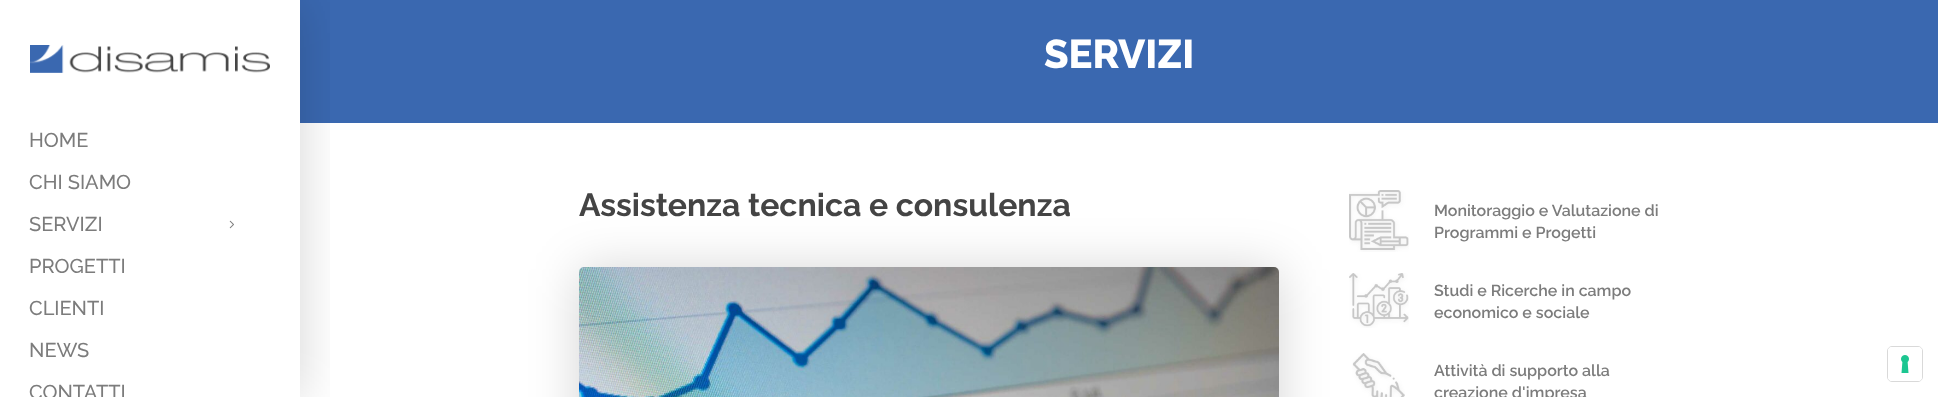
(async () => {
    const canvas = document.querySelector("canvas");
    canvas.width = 1938;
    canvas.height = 397;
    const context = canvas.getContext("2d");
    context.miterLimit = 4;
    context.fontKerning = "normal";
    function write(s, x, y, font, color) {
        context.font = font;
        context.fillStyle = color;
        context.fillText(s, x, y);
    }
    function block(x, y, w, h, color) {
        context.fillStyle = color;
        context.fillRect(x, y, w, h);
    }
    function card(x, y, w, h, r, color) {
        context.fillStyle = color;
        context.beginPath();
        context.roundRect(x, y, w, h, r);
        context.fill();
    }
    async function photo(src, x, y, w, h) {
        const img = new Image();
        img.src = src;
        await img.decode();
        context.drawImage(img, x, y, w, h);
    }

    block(0, 0, 1938, 397, "rgb(255, 255, 255)");
    block(300, 0, 1638, 123, "rgb(58, 104, 176)");
    context.save();
    context.beginPath();
    context.rect(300, 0, 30, 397);
    context.clip();
    context.fillStyle = "rgba(0, 0, 0, 0.17)";
    context.filter = "blur(25px)";
    context.beginPath();
    context.rect(0, 2, 300, 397);
    context.fill();
    context.filter = "none";
    context.restore();
    await photo("media/1.png", 30, 45, 240, 28);
    write("HOME", 29, 147, "500 20px Raleway", "rgb(124, 124, 124)");
    write("CHI SIAMO", 29, 189, "500 20px Raleway", "rgb(124, 124, 124)");
    write("SERVIZI", 29, 231, "500 20px Raleway", "rgb(124, 124, 124)");
    await photo("media/2.png", 229, 220, 5, 9);
    write("PROGETTI", 29, 273, "500 20px Raleway", "rgb(124, 124, 124)");
    write("CLIENTI", 29, 315, "500 20px Raleway", "rgb(124, 124, 124)");
    write("NEWS", 29, 357, "500 20px Raleway", "rgb(124, 124, 124)");
    write("CONTATTI", 29, 399, "500 20px Raleway", "rgb(124, 124, 124)");
    write("SERVIZI", 1044, 68, "800 40px Raleway", "rgb(255, 255, 255)");
    write("Assistenza tecnica e consulenza", 579, 216, "bold 32px Raleway", "rgb(68, 68, 68)");
    context.fillStyle = "rgba(0, 0, 0, 0.17)";
    context.filter = "blur(25px)";
    context.beginPath();
    context.roundRect(579, 269, 700, 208, 5);
    context.fill();
    context.filter = "none";
    await photo("media/3.png", 579, 267, 700, 130);
    await photo("media/4.png", 1349, 190, 60, 62);
    write("Monitoraggio e Valutazione di", 1434, 216, "600 16px Raleway", "rgb(124, 124, 124)");
    write("Programmi e Progetti", 1434, 238, "600 16px Raleway", "rgb(124, 124, 124)");
    await photo("media/5.png", 1349, 273, 60, 55);
    write("Studi e Ricerche in campo", 1434, 296, "600 16px Raleway", "rgb(124, 124, 124)");
    write("economico e sociale", 1434, 318, "600 16px Raleway", "rgb(124, 124, 124)");
    await photo("media/6.png", 1352, 353, 53, 44);
    write("Attività di supporto alla", 1434, 376, "600 16px Raleway", "rgb(124, 124, 124)");
    write("creazione d'impresa", 1434, 398, "600 16px Raleway", "rgb(124, 124, 124)");
    context.beginPath();
    context.roundRect(1887.5, 346.5, 35, 35, 4.5);
    context.strokeStyle = "rgb(217, 217, 217)";
    context.stroke();
    card(1888, 347, 34, 34, 4, "rgb(255, 255, 255)");
    await photo("media/7.png", 1901, 355, 8, 18);
})();
